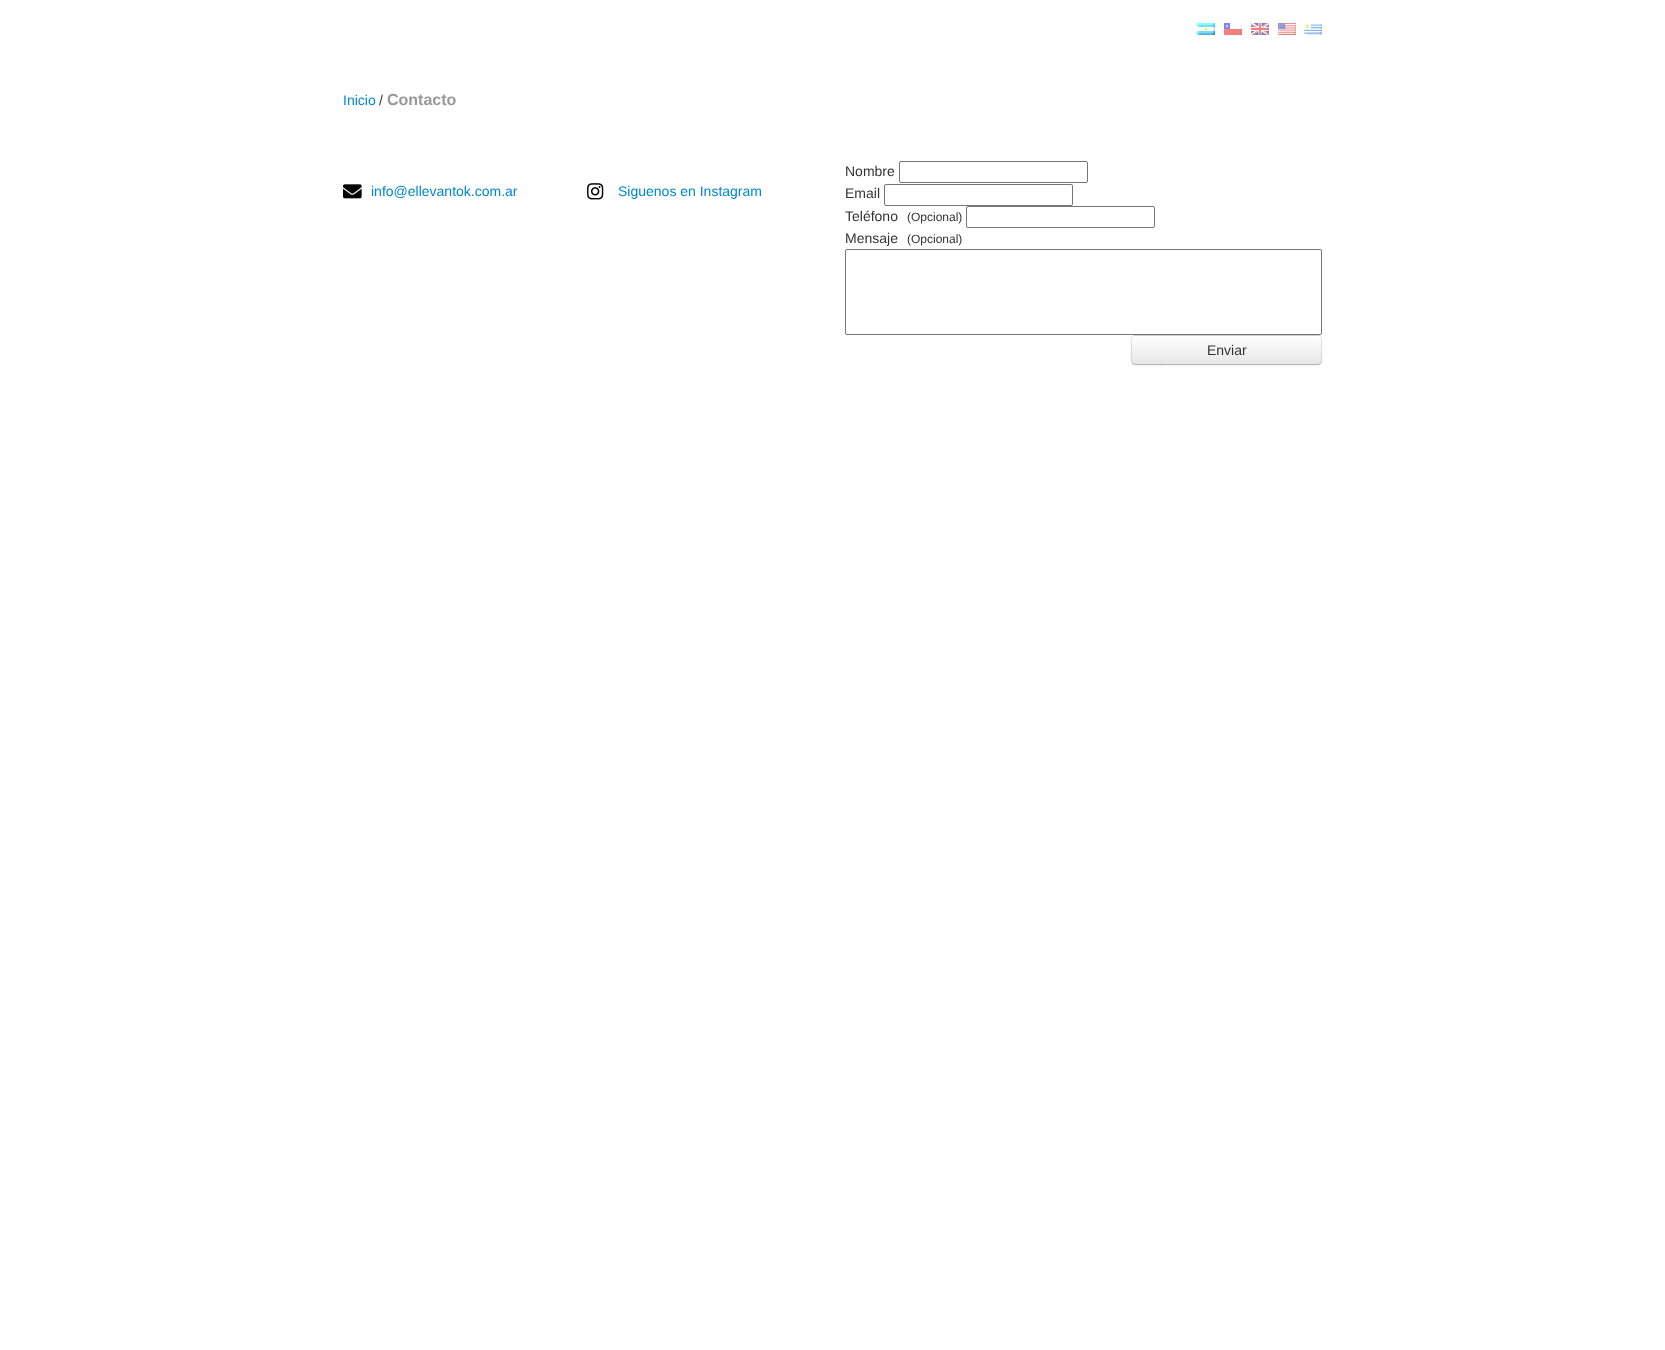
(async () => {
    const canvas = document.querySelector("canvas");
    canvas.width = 1665;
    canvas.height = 1350;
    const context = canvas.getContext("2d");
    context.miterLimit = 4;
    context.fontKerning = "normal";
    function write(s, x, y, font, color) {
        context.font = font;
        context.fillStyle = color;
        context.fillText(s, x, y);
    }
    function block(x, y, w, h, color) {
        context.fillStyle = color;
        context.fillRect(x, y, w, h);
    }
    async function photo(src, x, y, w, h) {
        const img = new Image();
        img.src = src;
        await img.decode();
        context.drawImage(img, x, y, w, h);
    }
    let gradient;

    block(0, 0, 1665, 1350, "rgb(255, 255, 255)");
    await photo("media/1.png", 1197, 23, 18, 12);
    await photo("media/2.png", 1224, 23, 18, 12);
    await photo("media/3.png", 1251, 23, 18, 12);
    await photo("media/4.png", 1278, 23, 18, 12);
    await photo("media/5.png", 1304, 24, 18, 11);
    write("Inicio", 343, 105, "14px Liberation Sans", "rgb(0, 136, 204)");
    write("/", 379, 105, "14px Liberation Sans", "rgb(51, 51, 51)");
    write("Contacto", 387, 105, "bold 16px Liberation Sans", "rgb(153, 153, 153)");
    await photo("media/6.png", 343, 184, 19, 15);
    write("info@ellevantok.com.ar", 371, 196, "14px Liberation Sans", "rgb(0, 136, 204)");
    await photo("media/7.png", 587, 183, 17, 17);
    write("Siguenos en Instagram", 618, 196, "14px Liberation Sans", "rgb(0, 136, 204)");
    write("Nombre", 845, 176, "14px Liberation Sans", "rgb(51, 51, 51)");
    context.beginPath();
    context.roundRect(899.5, 161.5, 188, 21, 1.5);
    context.strokeStyle = "rgb(118, 118, 118)";
    context.stroke();
    write("Email", 845, 198, "14px Liberation Sans", "rgb(51, 51, 51)");
    context.beginPath();
    context.roundRect(884.5, 184.5, 188, 21, 1.5);
    context.stroke();
    write("Teléfono", 845, 221, "14px Liberation Sans", "rgb(51, 51, 51)");
    write("(Opcional)", 907, 221, "12px Liberation Sans", "rgb(51, 51, 51)");
    context.beginPath();
    context.roundRect(966.5, 206.5, 188, 21, 1.5);
    context.stroke();
    write("Mensaje", 845, 243, "14px Liberation Sans", "rgb(51, 51, 51)");
    write("(Opcional)", 907, 243, "12px Liberation Sans", "rgb(51, 51, 51)");
    context.beginPath();
    context.roundRect(845.5, 249.5, 476, 85, 1.5);
    context.stroke();
    context.fillStyle = "rgba(0, 0, 0, 0.05)";
    context.filter = "blur(1px)";
    context.beginPath();
    context.roundRect(1131, 336, 191, 30, 4);
    context.fill();
    context.filter = "none";
    context.save();
    context.beginPath();
    context.roundRect(1131, 335, 191, 30, 4);
    context.clip();
    gradient = context.createLinearGradient(1227, 308, 1227, 336);
    gradient.addColorStop(0, "rgb(255, 255, 255)");
    gradient.addColorStop(1, "rgb(230, 230, 230)");
    context.fillStyle = gradient;
    context.fillRect(1131, 335, 191, 1);
    gradient = context.createLinearGradient(1227, 336, 1227, 364);
    gradient.addColorStop(0, "rgb(255, 255, 255)");
    gradient.addColorStop(1, "rgb(230, 230, 230)");
    context.fillStyle = gradient;
    context.fillRect(1131, 336, 191, 28);
    gradient = context.createLinearGradient(1227, 364, 1227, 392);
    gradient.addColorStop(0, "rgb(255, 255, 255)");
    gradient.addColorStop(1, "rgb(230, 230, 230)");
    context.fillStyle = gradient;
    context.fillRect(1131, 364, 191, 1);
    context.restore();
    context.beginPath();
    context.moveTo(1320.5, 363.5);
    context.lineTo(1318.5, 364.5);
    context.lineTo(1165.5, 364.5);
    context.lineTo(1135, 364.5);
    context.lineTo(1132.5, 363.5);
    context.strokeStyle = "rgb(179, 179, 179)";
    context.stroke();
    context.beginPath();
    context.moveTo(1132.5, 363.5);
    context.bezierCurveTo(1130.5, 361.5, 1131.5, 353, 1131.5, 350);
    context.lineTo(1131.5, 342.5);
    context.bezierCurveTo(1131.5, 340, 1131, 335.5, 1135, 335.5);
    context.lineTo(1318, 335.5);
    context.bezierCurveTo(1322, 335.5, 1321.5, 340, 1321.5, 342.5);
    context.lineTo(1321.5, 350);
    context.bezierCurveTo(1321.5, 353, 1322.5, 361.5, 1320.5, 363.5);
    context.strokeStyle = "rgba(0, 0, 0, 0.1)";
    context.stroke();
    write("Enviar", 1207, 355, "14px Liberation Sans", "rgb(51, 51, 51)");
})();
